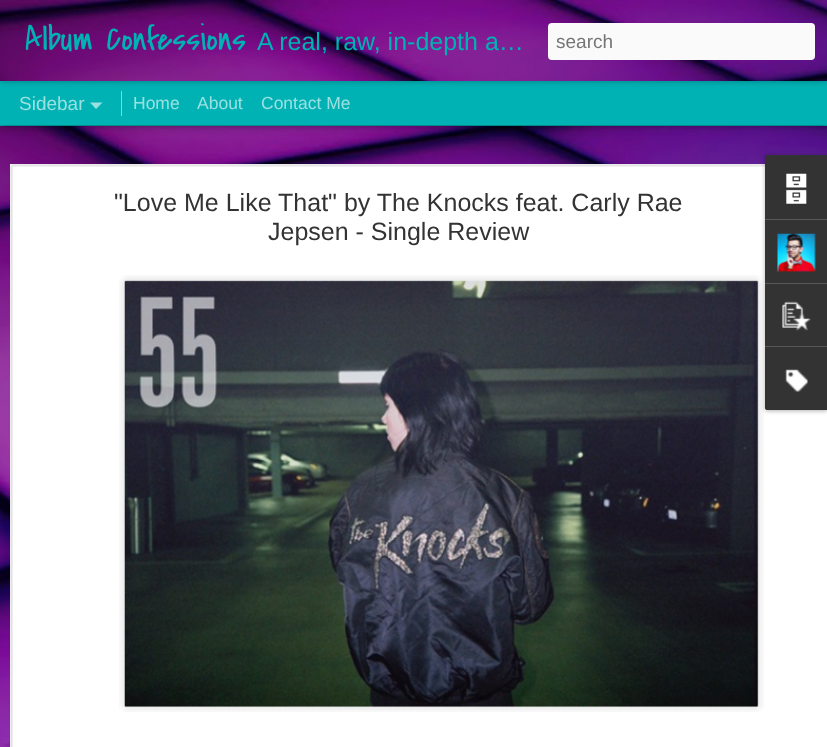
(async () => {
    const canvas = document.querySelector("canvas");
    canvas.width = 827;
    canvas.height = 747;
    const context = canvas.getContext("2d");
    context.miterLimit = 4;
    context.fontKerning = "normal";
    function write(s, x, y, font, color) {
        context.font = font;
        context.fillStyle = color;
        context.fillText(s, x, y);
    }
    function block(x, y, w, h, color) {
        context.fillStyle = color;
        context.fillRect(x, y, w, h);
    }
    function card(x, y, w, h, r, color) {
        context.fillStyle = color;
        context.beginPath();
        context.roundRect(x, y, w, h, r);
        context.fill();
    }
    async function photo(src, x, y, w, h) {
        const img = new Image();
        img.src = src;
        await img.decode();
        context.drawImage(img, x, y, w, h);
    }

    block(0, 0, 827, 747, "rgb(0, 178, 180)");
    await photo("media/2.png", 0, 126, 827, 621);
    context.fillStyle = "rgba(0, 0, 0, 0.5)";
    context.filter = "blur(5px)";
    context.beginPath();
    context.rect(0, 81, 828, 44);
    context.fill();
    context.filter = "none";
    block(0, 81, 827, 44, "rgb(0, 178, 180)");
    context.fillStyle = "rgba(0, 0, 0, 0.3)";
    context.filter = "blur(3px)";
    context.beginPath();
    context.rect(0, 0, 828, 81);
    context.fill();
    context.filter = "none";
    await photo("media/1.png", 0, 0, 827, 81);
    write("Album Confessions", 25, 50, "35px Covered By Your Grace", "rgb(0, 178, 180)");
    write("A real, raw, in-depth a…", 257, 50, "25px Liberation Sans", "rgb(0, 178, 180)");
    card(548, 23, 267, 37, 4, "rgb(250, 250, 250)");
    write("search", 556, 48, "19px Liberation Sans", "rgb(117, 117, 117)");
    write("Sidebar", 19, 110, "19px Liberation Sans", "rgb(153, 224, 225)");
    context.beginPath();
    context.moveTo(90, 102.5);
    context.lineTo(102.5, 102.5);
    context.lineTo(96, 109);
    context.closePath();
    context.fill();
    block(121, 91, 1, 25, "rgb(128, 217, 218)");
    write("Home", 133, 109, "17.5px Liberation Sans", "rgb(153, 224, 225)");
    write("About", 197, 109, "17.5px Liberation Sans", "rgb(153, 224, 225)");
    write("Contact Me", 261, 109, "17.5px Liberation Sans", "rgb(153, 224, 225)");
    block(10, 164, 817, 583, "rgb(255, 255, 255)");
    await photo("media/3.png", 10, 164, 755, 583);
    write("\"Love Me Like That\" by The Knocks feat. Carly Rae", 114, 211, "25px Liberation Sans", "rgb(51, 51, 51)");
    write("Jepsen - Single Review", 268, 240, "25px Liberation Sans", "rgb(51, 51, 51)");
    await photo("media/4.png", 119, 275, 645, 437);
    await photo("media/5.png", 124, 280, 635, 427);
    context.fillStyle = "rgba(0, 0, 0, 0.3)";
    context.filter = "blur(2px)";
    context.beginPath();
    context.roundRect(765, 156, 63, 255, 2.5);
    context.fill();
    context.filter = "none";
    context.fillStyle = "rgb(51, 51, 51)";
    context.beginPath();
    context.moveTo(767.5, 155);
    context.lineTo(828, 155);
    context.lineTo(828, 410);
    context.lineTo(767.5, 410);
    context.bezierCurveTo(766, 410, 765, 409, 765, 407.5);
    context.lineTo(765, 157.5);
    context.bezierCurveTo(765, 156, 766, 155, 767.5, 155);
    context.closePath();
    context.fill();
    context.beginPath();
    context.moveTo(767.5, 155);
    context.lineTo(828, 155);
    context.lineTo(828, 219);
    context.lineTo(765, 219);
    context.lineTo(765, 157.5);
    context.bezierCurveTo(765, 156, 766, 155, 767.5, 155);
    context.closePath();
    context.fill();
    await photo("media/6.png", 786, 173, 21, 31);
    block(765, 219, 62, 1, "rgb(88, 88, 88)");
    await photo("media/7.png", 777, 233, 39, 39);
    block(765, 283, 62, 1, "rgb(88, 88, 88)");
    await photo("media/8.png", 782, 301, 29, 30);
    context.fillStyle = "rgb(51, 51, 51)";
    context.beginPath();
    context.moveTo(765, 346);
    context.lineTo(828, 346);
    context.lineTo(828, 410);
    context.lineTo(767.5, 410);
    context.bezierCurveTo(766, 410, 765, 409, 765, 407.5);
    context.closePath();
    context.fill();
    block(765, 346, 62, 1, "rgb(88, 88, 88)");
    await photo("media/9.png", 785, 369, 23, 23);
})();
